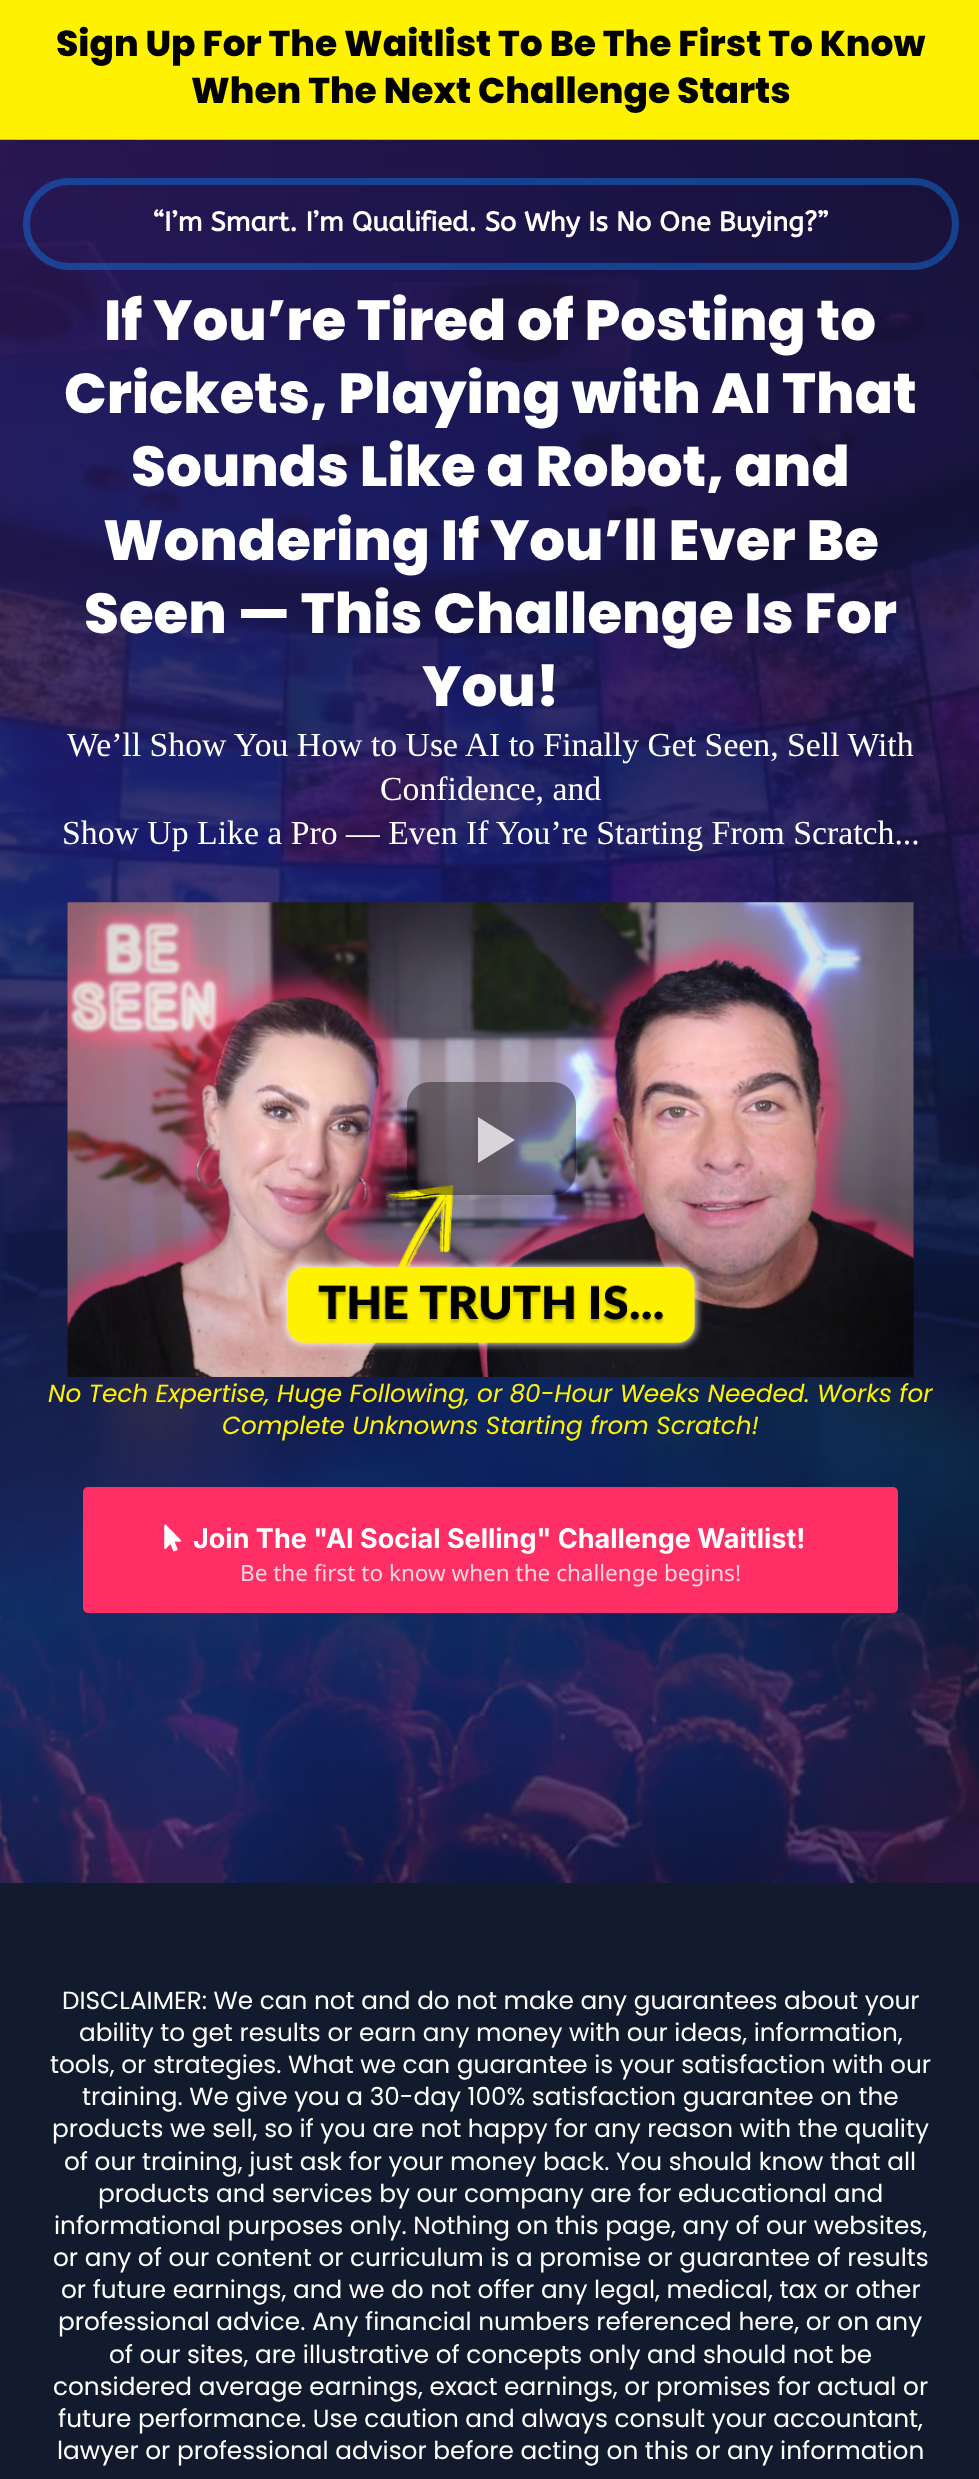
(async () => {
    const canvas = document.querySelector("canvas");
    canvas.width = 979;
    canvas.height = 2479;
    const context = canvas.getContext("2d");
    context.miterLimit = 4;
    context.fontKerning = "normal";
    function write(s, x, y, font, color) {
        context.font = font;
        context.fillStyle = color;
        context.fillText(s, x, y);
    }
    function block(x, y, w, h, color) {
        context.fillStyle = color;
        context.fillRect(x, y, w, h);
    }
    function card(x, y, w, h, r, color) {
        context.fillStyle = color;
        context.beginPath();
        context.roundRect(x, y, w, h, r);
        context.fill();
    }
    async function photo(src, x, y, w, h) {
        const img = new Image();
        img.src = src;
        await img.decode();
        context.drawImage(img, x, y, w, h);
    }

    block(0, 0, 979, 2479, "rgb(255, 242, 0)");
    write("Sign Up For The Waitlist To Be The First To Know", 56, 56, "800 36px Poppins", "rgb(0, 0, 0)");
    write("When The Next Challenge Starts", 191, 103, "800 36px Poppins", "rgb(0, 0, 0)");
    block(0, 140, 979, 2339, "rgb(18, 26, 46)");
    await photo("media/1.png", 0, 139, 979, 1744);
    context.beginPath();
    context.roundRect(26.5, 181.5, 929, 85, 42.5);
    context.strokeStyle = "rgba(17, 116, 230, 0.47)";
    context.lineWidth = 7;
    context.stroke();
    write("“I’m Smart. I’m Qualified. So Why Is No One Buying?”", 153, 231, "bold 27px ABeeZee", "rgb(255, 255, 255)");
    write("If You’re Tired of Posting to", 104, 340, "800 56.25px Poppins", "rgb(255, 255, 255)");
    write("Crickets, Playing with AI That", 64, 413, "800 56.25px Poppins", "rgb(255, 255, 255)");
    write("Sounds Like a Robot, and", 131, 486, "800 56.25px Poppins", "rgb(255, 255, 255)");
    write("Wondering If You’ll Ever Be", 103, 560, "800 56.25px Poppins", "rgb(255, 255, 255)");
    write("Seen — This Challenge Is For", 84, 633, "800 56.25px Poppins", "rgb(255, 255, 255)");
    write("You!", 422, 706, "800 56.25px Poppins", "rgb(255, 255, 255)");
    write("We’ll Show You How to Use AI to Finally Get Seen, Sell With", 67, 756, "33.75px Liberation Serif", "rgb(255, 255, 255)");
    write("Confidence, and", 380, 800, "33.75px Liberation Serif", "rgb(255, 255, 255)");
    write("Show Up Like a Pro — Even If You’re Starting From Scratch...", 62, 844, "33.75px Liberation Serif", "rgb(255, 255, 255)");
    await photo("media/2.png", 67, 902, 847, 475);
    card(407, 1082, 169, 113, 23, "rgba(0, 0, 0, 0.38)");
    context.fillStyle = "rgba(255, 255, 255, 0.75)";
    context.beginPath();
    context.moveTo(478, 1117);
    context.lineTo(478, 1163);
    context.lineTo(515, 1140);
    context.closePath();
    context.fill();
    write("No Tech Expertise, Huge Following, or 80-Hour Weeks Needed. Works for", 48, 1402, "italic 24.75px Poppins", "rgb(255, 242, 0)");
    write("Complete Unknowns Starting from Scratch!", 222, 1434, "italic 24.75px Poppins", "rgb(255, 242, 0)");
    card(83, 1487, 815, 126, 5, "rgb(255, 47, 102)");
    await photo("media/3.png", 164, 1524, 18, 28);
    write("Join The \"AI Social Selling\" Challenge Waitlist!", 193, 1548, "bold 27px Inter", "rgb(255, 255, 255)");
    write("Be the first to know when the challenge begins!", 240, 1581, "22.5px Noto Sans", "rgb(255, 213, 224)");
    write("DISCLAIMER: We can not and do not make any guarantees about your", 62, 2009, "24.75px Poppins", "rgb(255, 255, 255)");
    write("ability to get results or earn any money with our ideas, information,", 79, 2041, "24.75px Poppins", "rgb(255, 255, 255)");
    write("tools, or strategies. What we can guarantee is your satisfaction with our", 50, 2073, "24.75px Poppins", "rgb(255, 255, 255)");
    write("training. We give you a 30-day 100% satisfaction guarantee on the", 82, 2105, "24.75px Poppins", "rgb(255, 255, 255)");
    write("products we sell, so if you are not happy for any reason with the quality", 52, 2137, "24.75px Poppins", "rgb(255, 255, 255)");
    write("of our training, just ask for your money back. You should know that all", 64, 2170, "24.75px Poppins", "rgb(255, 255, 255)");
    write("products and services by our company are for educational and", 98, 2202, "24.75px Poppins", "rgb(255, 255, 255)");
    write("informational purposes only. Nothing on this page, any of our websites,", 54, 2234, "24.75px Poppins", "rgb(255, 255, 255)");
    write("or any of our content or curriculum is a promise or guarantee of results", 53, 2266, "24.75px Poppins", "rgb(255, 255, 255)");
    write("or future earnings, and we do not offer any legal, medical, tax or other", 61, 2298, "24.75px Poppins", "rgb(255, 255, 255)");
    write("professional advice. Any financial numbers referenced here, or on any", 58, 2330, "24.75px Poppins", "rgb(255, 255, 255)");
    write("of our sites, are illustrative of concepts only and should not be", 109, 2363, "24.75px Poppins", "rgb(255, 255, 255)");
    write("considered average earnings, exact earnings, or promises for actual or", 53, 2395, "24.75px Poppins", "rgb(255, 255, 255)");
    write("future performance. Use caution and always consult your accountant,", 58, 2427, "24.75px Poppins", "rgb(255, 255, 255)");
    write("lawyer or professional advisor before acting on this or any information", 57, 2459, "24.75px Poppins", "rgb(255, 255, 255)");
})();
